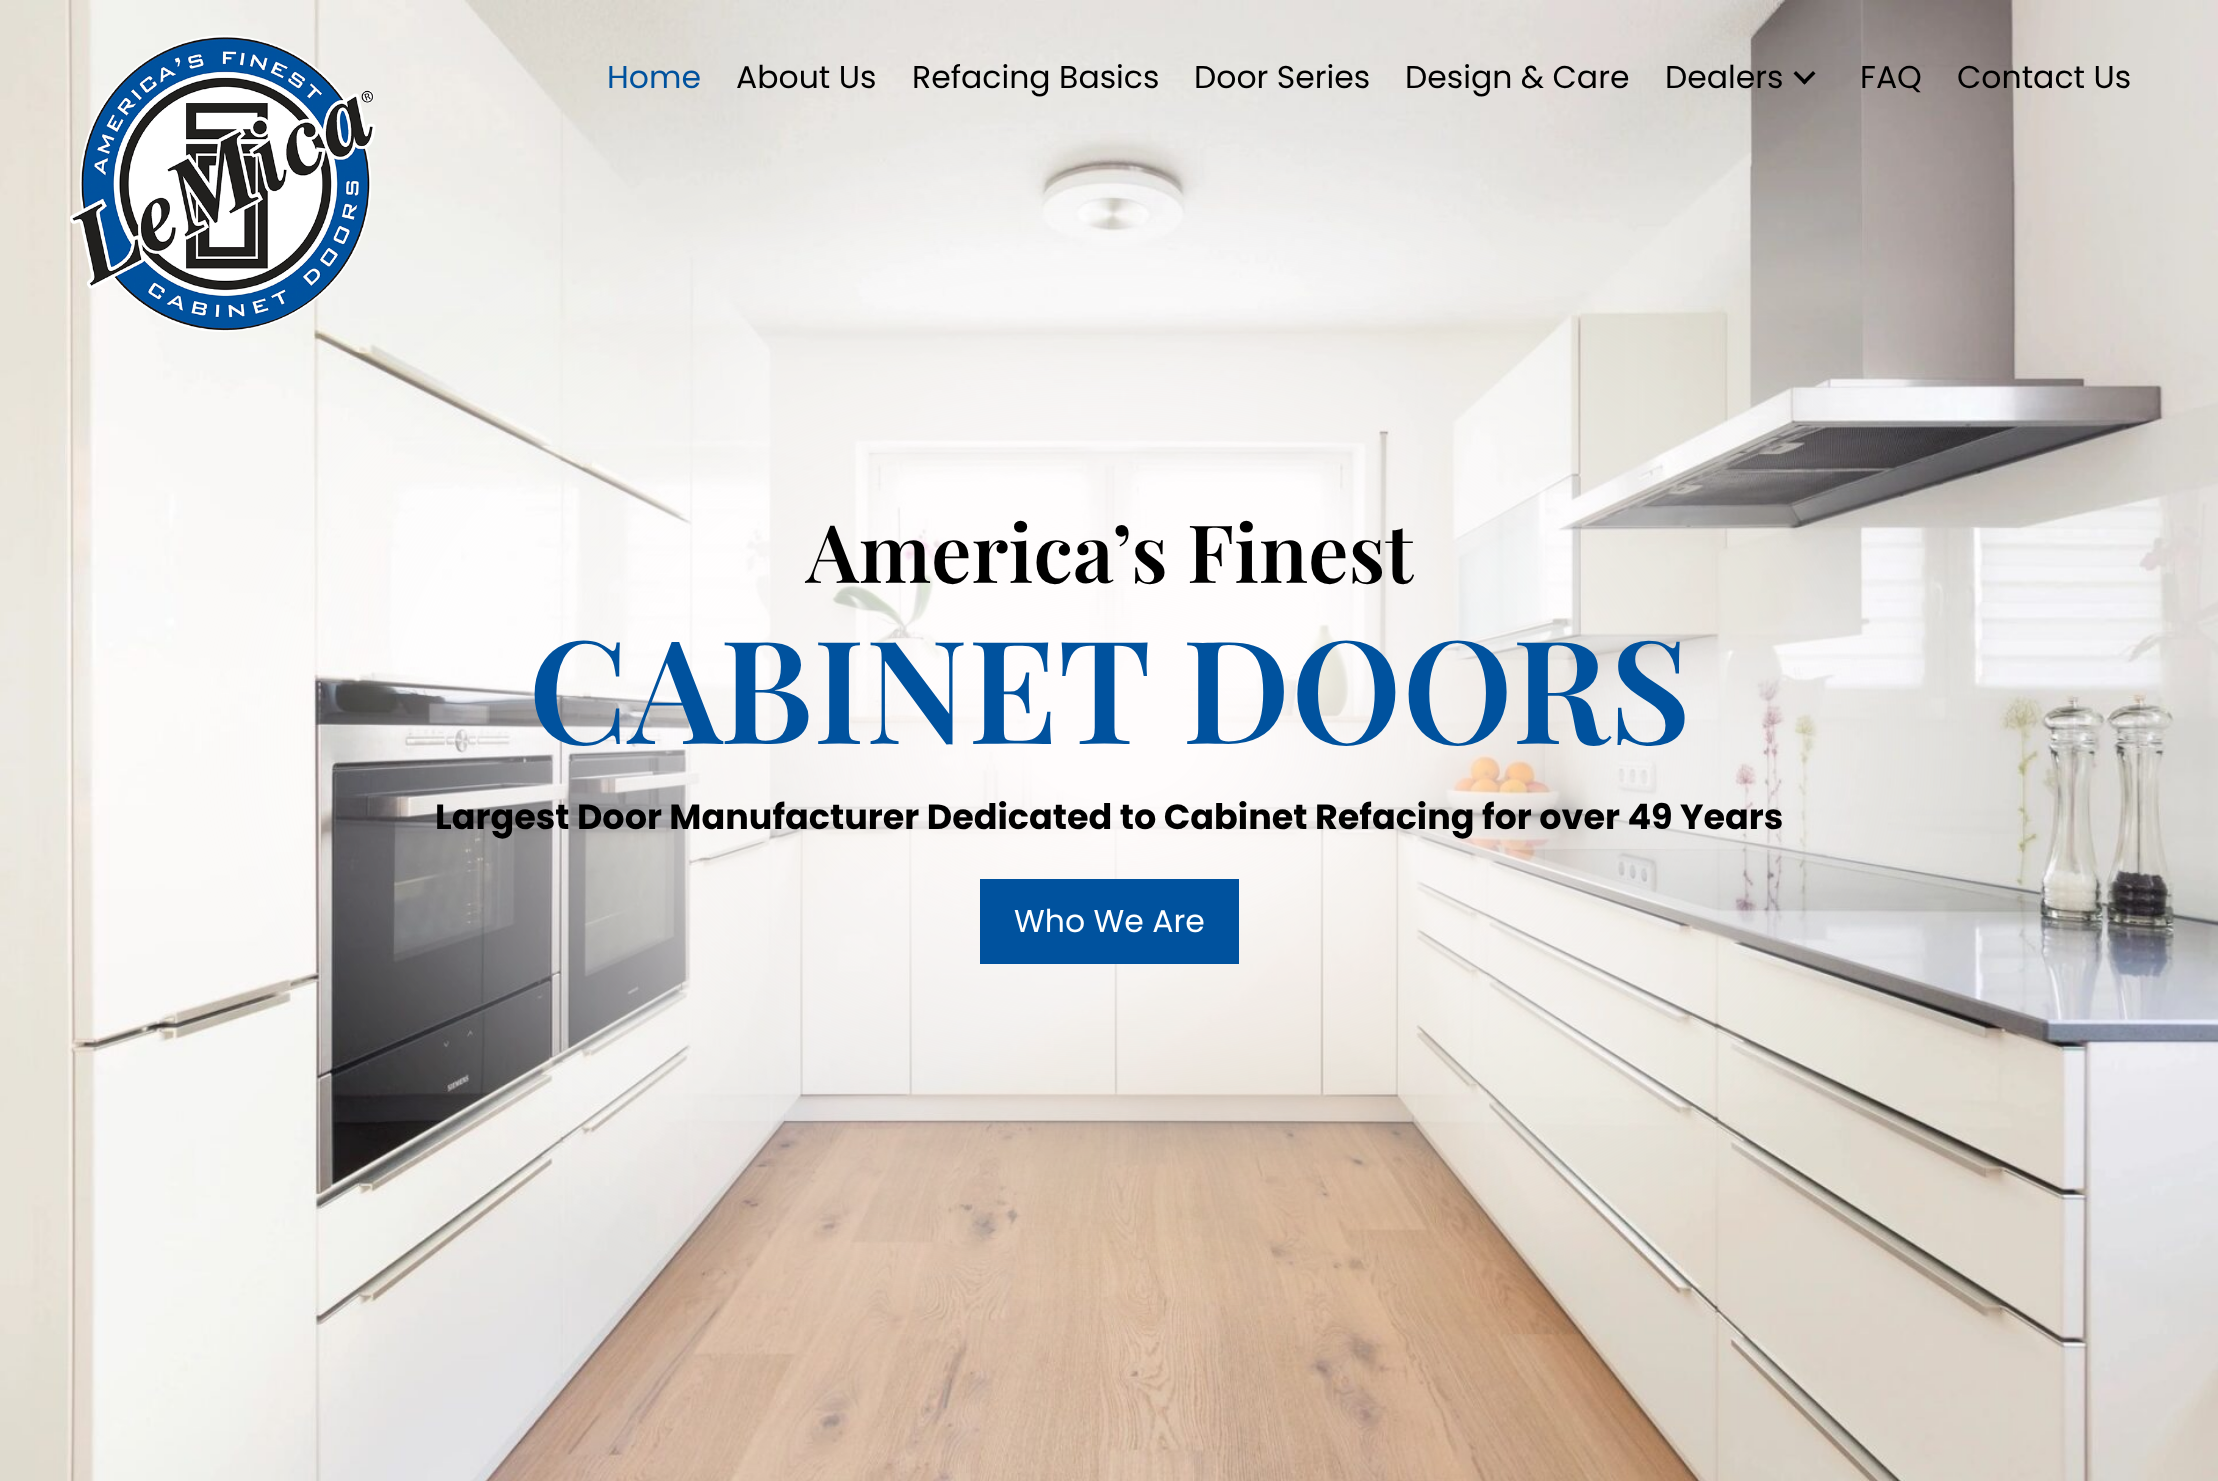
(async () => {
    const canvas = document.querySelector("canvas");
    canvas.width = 2218;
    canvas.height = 1481;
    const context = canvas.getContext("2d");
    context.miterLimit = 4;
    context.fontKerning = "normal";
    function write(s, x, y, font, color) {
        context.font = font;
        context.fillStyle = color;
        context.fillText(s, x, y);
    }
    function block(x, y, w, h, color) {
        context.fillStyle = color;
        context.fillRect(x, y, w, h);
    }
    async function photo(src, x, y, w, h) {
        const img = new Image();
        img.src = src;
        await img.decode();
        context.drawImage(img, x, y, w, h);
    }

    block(0, 0, 2218, 1481, "rgb(255, 255, 255)");
    await photo("media/2.png", 0, 0, 2218, 1481);
    await photo("media/1.png", 70, 35, 306, 297);
    write("Home", 607, 88, "31.5px Poppins", "rgb(0, 82, 158)");
    write("About Us", 736, 88, "31.5px Poppins", "rgb(0, 0, 0)");
    write("Refacing Basics", 912, 88, "31.5px Poppins", "rgb(0, 0, 0)");
    write("Door Series", 1194, 88, "31.5px Poppins", "rgb(0, 0, 0)");
    write("Design & Care", 1405, 88, "31.5px Poppins", "rgb(0, 0, 0)");
    write("Dealers", 1665, 88, "31.5px Poppins", "rgb(0, 0, 0)");
    context.beginPath();
    context.moveTo(1813, 71);
    context.lineTo(1815.5, 73.5);
    context.lineTo(1804.5, 84.5);
    context.lineTo(1802, 82);
    context.closePath();
    context.fill();
    context.beginPath();
    context.moveTo(1796, 71);
    context.lineTo(1807, 82);
    context.lineTo(1804.5, 84.5);
    context.lineTo(1793.5, 73.5);
    context.closePath();
    context.fill();
    write("FAQ", 1860, 88, "31.5px Poppins", "rgb(0, 0, 0)");
    write("Contact Us", 1957, 88, "31.5px Poppins", "rgb(0, 0, 0)");
    write("America’s Finest", 806, 583, "600 80.5px Playfair Display", "rgb(0, 0, 0)");
    write("CABINET DOORS", 528, 744, "600 143.5px Playfair Display", "rgb(0, 82, 158)");
    write("Largest Door Manufacturer Dedicated to Cabinet Refacing for over 49 Years", 435, 829, "bold 35px Poppins", "rgb(0, 0, 0)");
    block(980, 879, 259, 85, "rgb(0, 82, 158)");
    write("Who We Are", 1014, 932, "31.5px Poppins", "rgb(255, 255, 255)");
})();
